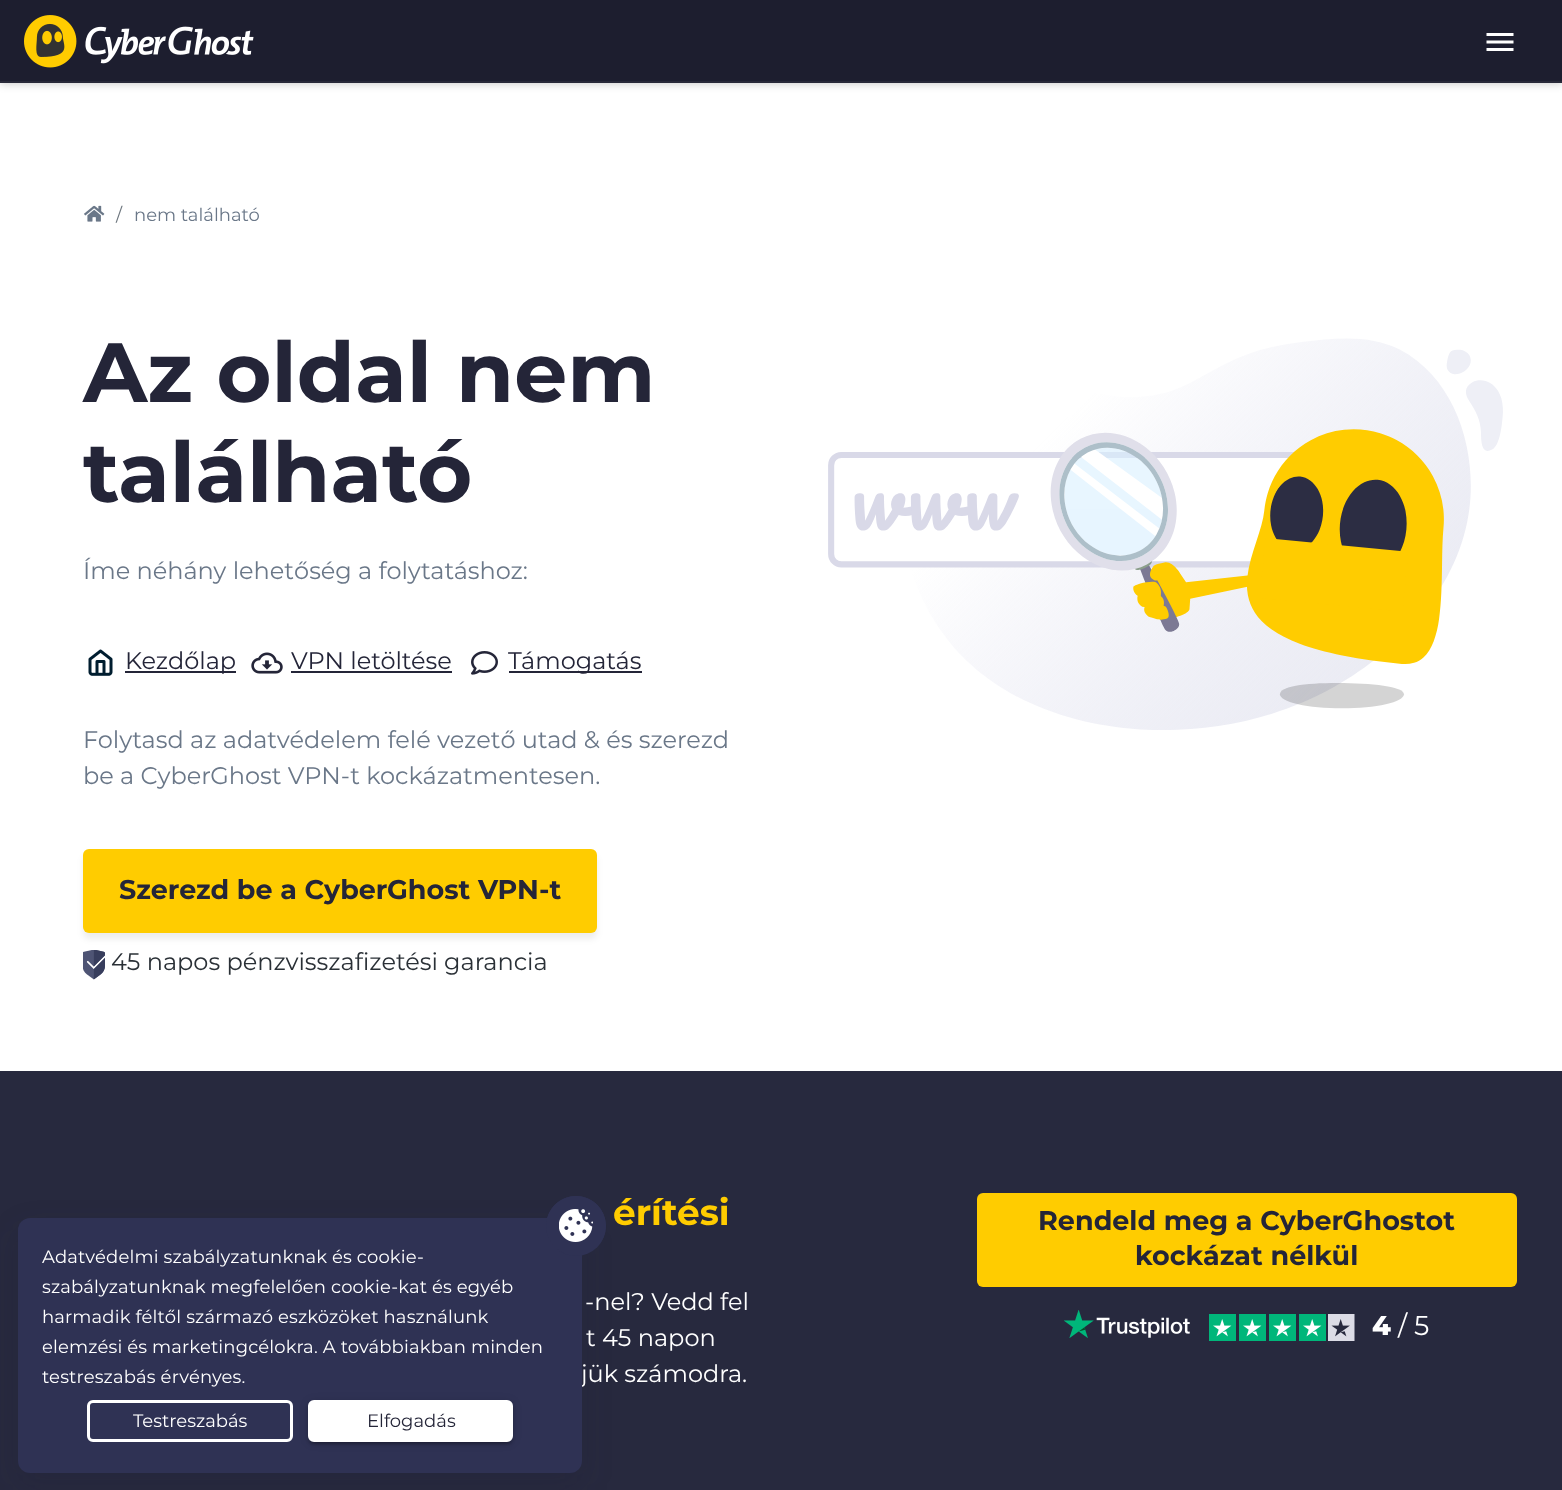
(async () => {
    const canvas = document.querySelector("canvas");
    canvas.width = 1562;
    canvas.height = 1490;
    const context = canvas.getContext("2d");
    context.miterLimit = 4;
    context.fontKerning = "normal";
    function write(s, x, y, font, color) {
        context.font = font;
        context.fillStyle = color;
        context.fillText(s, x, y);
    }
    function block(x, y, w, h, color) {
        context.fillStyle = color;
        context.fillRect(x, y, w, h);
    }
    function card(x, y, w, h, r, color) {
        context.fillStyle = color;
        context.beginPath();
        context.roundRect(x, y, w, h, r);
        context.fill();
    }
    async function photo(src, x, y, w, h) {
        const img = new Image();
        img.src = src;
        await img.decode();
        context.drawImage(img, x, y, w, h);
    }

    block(0, 0, 1562, 1490, "rgb(255, 255, 255)");
    context.fillStyle = "rgba(0, 0, 0, 0.2)";
    context.filter = "blur(4px)";
    context.beginPath();
    context.rect(0, 2, 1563, 82);
    context.fill();
    context.filter = "none";
    block(0, 0, 1562, 81, "rgb(29, 30, 47)");
    block(0, 81, 1562, 2, "rgb(40, 41, 57)");
    await photo("media/1.png", 24, 15, 230, 53);
    await photo("media/2.png", 1486, 33, 28, 18);
    await photo("media/3.png", 84, 205, 21, 17);
    write("/", 116, 221, "18px Montserrat", "rgb(108, 117, 125)");
    write("nem található", 134, 221, "18px Montserrat", "rgb(106, 119, 136)");
    write("Az oldal nem", 83, 402, "bold 84px Montserrat", "rgb(36, 37, 56)");
    write("található", 83, 502, "bold 84px Montserrat", "rgb(36, 37, 56)");
    write("Íme néhány lehetőség a folytatáshoz:", 83, 579, "24px Montserrat", "rgb(106, 119, 136)");
    await photo("media/4.png", 88, 649, 25, 27);
    block(125, 671, 111, 2, "rgb(36, 37, 56)");
    write("Kezdőlap", 125, 669, "24px Montserrat", "rgb(36, 37, 56)");
    await photo("media/5.png", 251, 652, 32, 22);
    write("VPN letöltése", 291, 669, "24px Montserrat", "rgb(36, 37, 56)");
    block(291, 671, 161, 2, "rgb(36, 37, 56)");
    await photo("media/6.png", 471, 651, 27, 24);
    block(509, 671, 133, 2, "rgb(36, 37, 56)");
    write("Támogatás", 508, 669, "24px Montserrat", "rgb(36, 37, 56)");
    write("Folytasd az adatvédelem felé vezető utad & és szerezd", 83, 748, "24px Montserrat", "rgb(106, 119, 136)");
    write("be a CyberGhost VPN-t kockázatmentesen.", 83, 784, "24px Montserrat", "rgb(106, 119, 136)");
    context.fillStyle = "rgba(0, 0, 0, 0.07)";
    context.filter = "blur(3px)";
    context.beginPath();
    context.roundRect(83, 855, 514, 84, 6);
    context.fill();
    context.filter = "none";
    card(83, 849, 514, 84, 6, "rgb(255, 204, 0)");
    write("Szerezd be a CyberGhost VPN-t", 119, 899, "bold 27px Montserrat", "rgb(36, 37, 56)");
    await photo("media/7.png", 83, 950, 22, 30);
    write("45 napos pénzvisszafizetési garancia", 111, 970, "24px Montserrat", "rgb(42, 48, 54)");
    await photo("media/8.png", 828, 338, 675, 392);
    block(0, 1071, 1562, 419, "rgb(39, 41, 62)");
    context.fillStyle = "rgba(24, 25, 51, 0.15)";
    context.filter = "blur(15px)";
    context.beginPath();
    context.roundRect(18, 1230, 564, 255, 12);
    context.fill();
    context.filter = "none";
    write("jük számodra.", 581, 1382, "24px Montserrat", "rgb(255, 255, 255)");
    card(18, 1218, 564, 255, 12, "rgb(47, 50, 84)");
    context.beginPath();
    context.arc(576, 1226, 30, 0, Math.PI * 2);
    context.fill();
    await photo("media/9.png", 547, 1196, 59, 46);
    context.letterSpacing = "0.15px";
    write("Adatvédelmi szabályzatunknak és cookie-", 42, 1263, "18px Montserrat", "rgb(255, 255, 255)");
    write("szabályzatunknak megfelelően cookie-kat és egyéb", 42, 1293, "18px Montserrat", "rgb(255, 255, 255)");
    write("harmadik féltől származó eszközöket használunk", 42, 1323, "18px Montserrat", "rgb(255, 255, 255)");
    write("elemzési és marketingcélokra. A továbbiakban minden", 42, 1353, "18px Montserrat", "rgb(255, 255, 255)");
    write("testreszabás érvényes.", 42, 1383, "18px Montserrat", "rgb(255, 255, 255)");
    context.beginPath();
    context.roundRect(88.5, 1401.5, 203, 39, 4.5);
    context.strokeStyle = "rgb(255, 255, 255)";
    context.lineWidth = 3;
    context.stroke();
    context.letterSpacing = "0px";
    write("Testreszabás", 133, 1427, "18px Montserrat", "rgb(255, 255, 255)");
    context.fillStyle = "rgba(0, 0, 0, 0.12)";
    context.filter = "blur(4px)";
    context.beginPath();
    context.roundRect(308, 1401, 205, 42, 6);
    context.fill();
    context.filter = "none";
    context.fillStyle = "rgba(0, 0, 0, 0.14)";
    context.filter = "blur(1.5px)";
    context.beginPath();
    context.roundRect(308, 1403, 205, 42, 6);
    context.fill();
    context.filter = "none";
    context.fillStyle = "rgba(0, 0, 0, 0.2)";
    context.filter = "blur(1px)";
    context.beginPath();
    context.roundRect(311, 1407, 199, 36, 3);
    context.fill();
    context.filter = "none";
    context.fillStyle = "rgb(255, 255, 255)";
    context.beginPath();
    context.roundRect(309.5, 1401.5, 202, 39, 4.5);
    context.fill();
    context.stroke();
    write("Elfogadás", 367, 1427, "18px Montserrat", "rgb(36, 37, 56)");
    write("érítési", 613, 1225, "bold 36px Montserrat", "rgb(255, 204, 0)");
    write("-nel? Vedd fel", 585, 1310, "24px Montserrat", "rgb(255, 255, 255)");
    write("t 45 napon", 586, 1346, "24px Montserrat", "rgb(255, 255, 255)");
    card(977, 1193, 540, 94, 6, "rgb(255, 204, 0)");
    write("Rendeld meg a CyberGhostot", 1038, 1230, "bold 27px Montserrat", "rgb(36, 37, 56)");
    write("kockázat nélkül", 1135, 1265, "bold 27px Montserrat", "rgb(36, 37, 56)");
    await photo("media/10.png", 1064, 1310, 126, 28);
    block(1213, 1319, 19, 18, "rgb(255, 255, 255)");
    await photo("media/11.png", 1209, 1314, 27, 27);
    block(1243, 1319, 19, 18, "rgb(255, 255, 255)");
    await photo("media/11.png", 1239, 1314, 27, 27);
    block(1273, 1319, 19, 18, "rgb(255, 255, 255)");
    await photo("media/11.png", 1269, 1314, 27, 27);
    block(1303, 1319, 19, 18, "rgb(255, 255, 255)");
    await photo("media/11.png", 1299, 1314, 27, 27);
    await photo("media/12.png", 1328, 1314, 27, 27);
    write("4", 1372, 1335, "800 27px Montserrat", "rgb(255, 255, 255)");
    write("/ 5", 1398, 1335, "27px Montserrat", "rgb(255, 255, 255)");
})();
